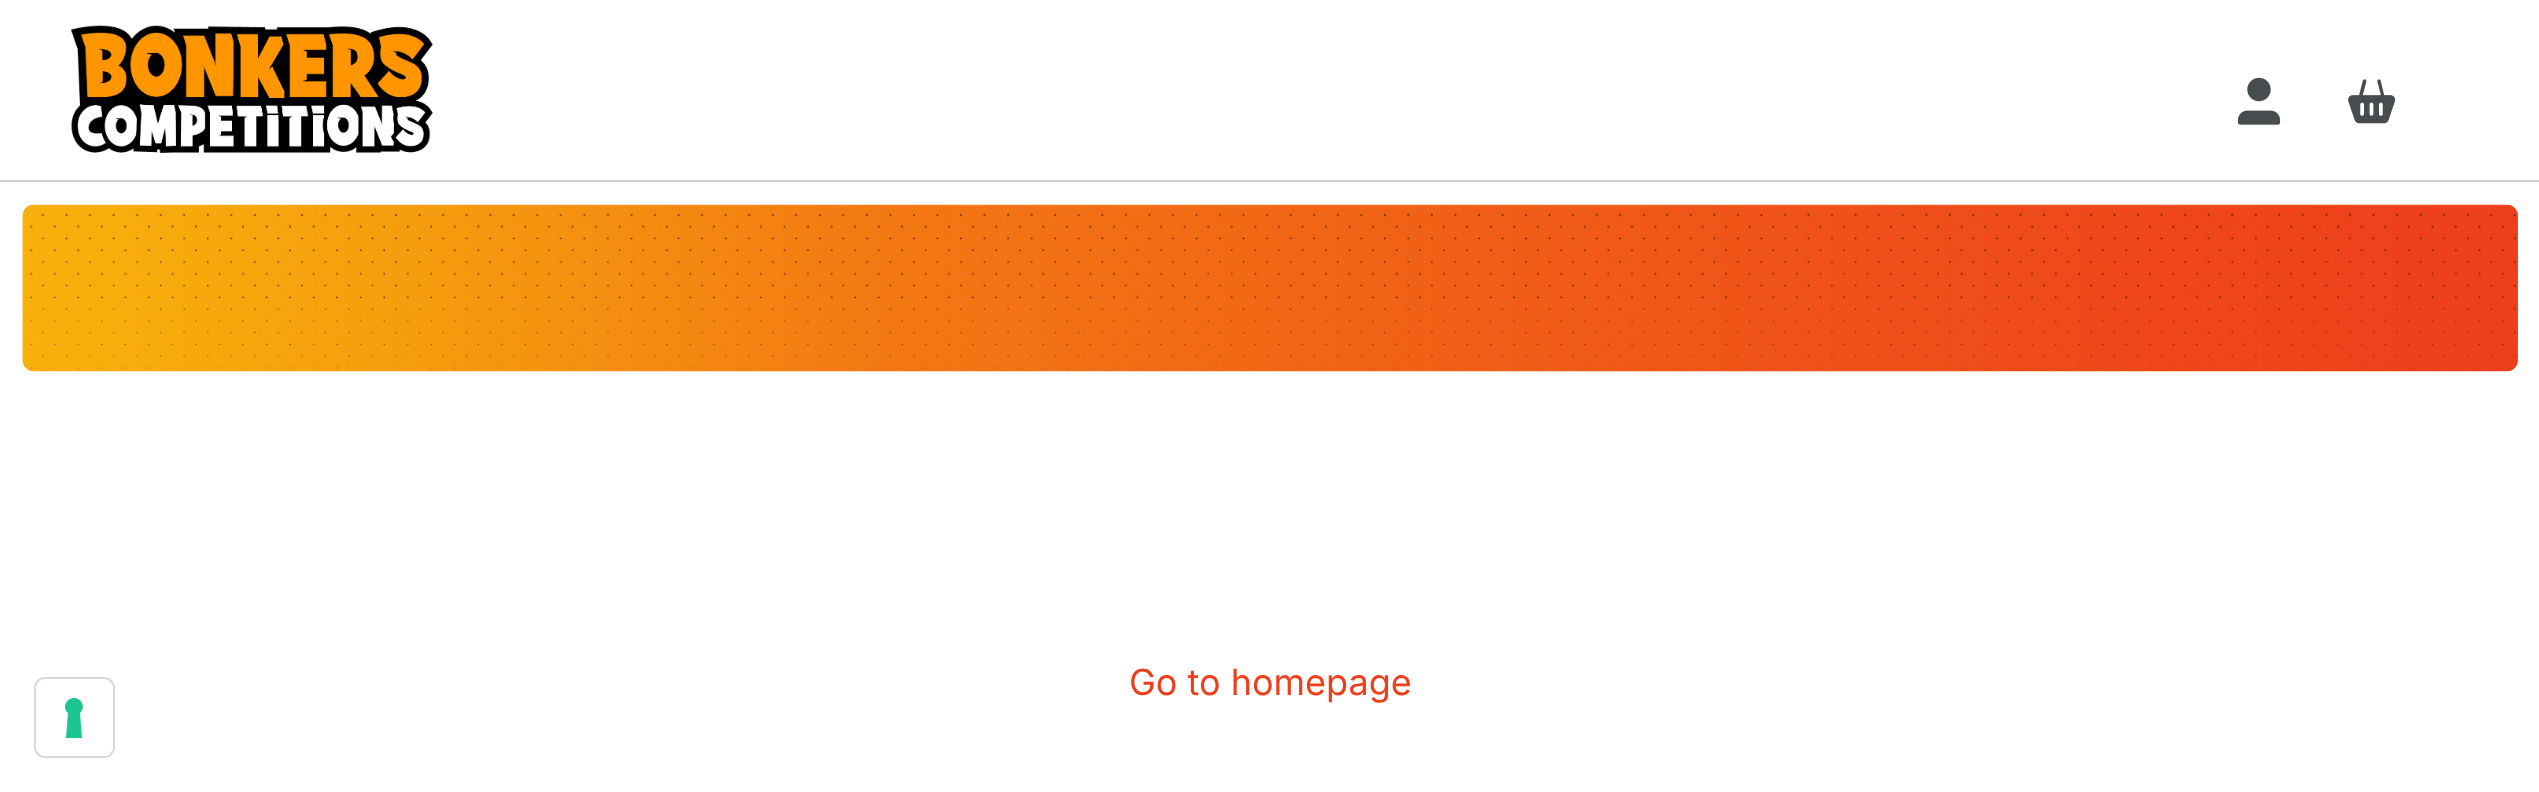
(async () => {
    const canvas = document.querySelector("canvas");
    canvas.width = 2539;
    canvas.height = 792;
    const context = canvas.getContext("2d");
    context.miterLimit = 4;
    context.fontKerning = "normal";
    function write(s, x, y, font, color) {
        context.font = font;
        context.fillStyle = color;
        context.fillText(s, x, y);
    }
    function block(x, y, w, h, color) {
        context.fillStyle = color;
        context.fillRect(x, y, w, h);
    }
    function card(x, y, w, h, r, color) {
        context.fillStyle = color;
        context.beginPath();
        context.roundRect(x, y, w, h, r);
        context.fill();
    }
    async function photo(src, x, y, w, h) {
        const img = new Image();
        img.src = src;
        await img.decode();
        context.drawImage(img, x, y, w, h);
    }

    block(0, 0, 2539, 792, "rgb(255, 255, 255)");
    block(0, 180, 2539, 2, "rgb(207, 209, 211)");
    await photo("media/1.png", 70, 25, 363, 128);
    await photo("media/2.png", 2237, 77, 44, 48);
    await photo("media/3.png", 2348, 79, 48, 45);
    card(23, 205, 2495, 166, 11, "rgb(238, 63, 27)");
    await photo("media/4.png", 22, 204, 2496, 168);
    context.beginPath();
    context.roundRect(35, 678, 79, 79, 10);
    context.strokeStyle = "rgb(217, 217, 217)";
    context.lineWidth = 2;
    context.stroke();
    card(36, 680, 77, 76, 9, "rgb(255, 255, 255)");
    context.fillStyle = "rgb(28, 198, 145)";
    context.beginPath();
    context.moveTo(74, 698);
    context.bezierCurveTo(82, 698, 86, 708, 80, 713);
    context.lineTo(82, 738);
    context.lineTo(66, 738);
    context.lineTo(68, 713);
    context.bezierCurveTo(62, 708, 66, 698, 74, 698);
    context.closePath();
    context.fill("evenodd");
    write("Go to homepage", 1129, 695, "36px Inter", "rgb(238, 63, 27)");
})();
